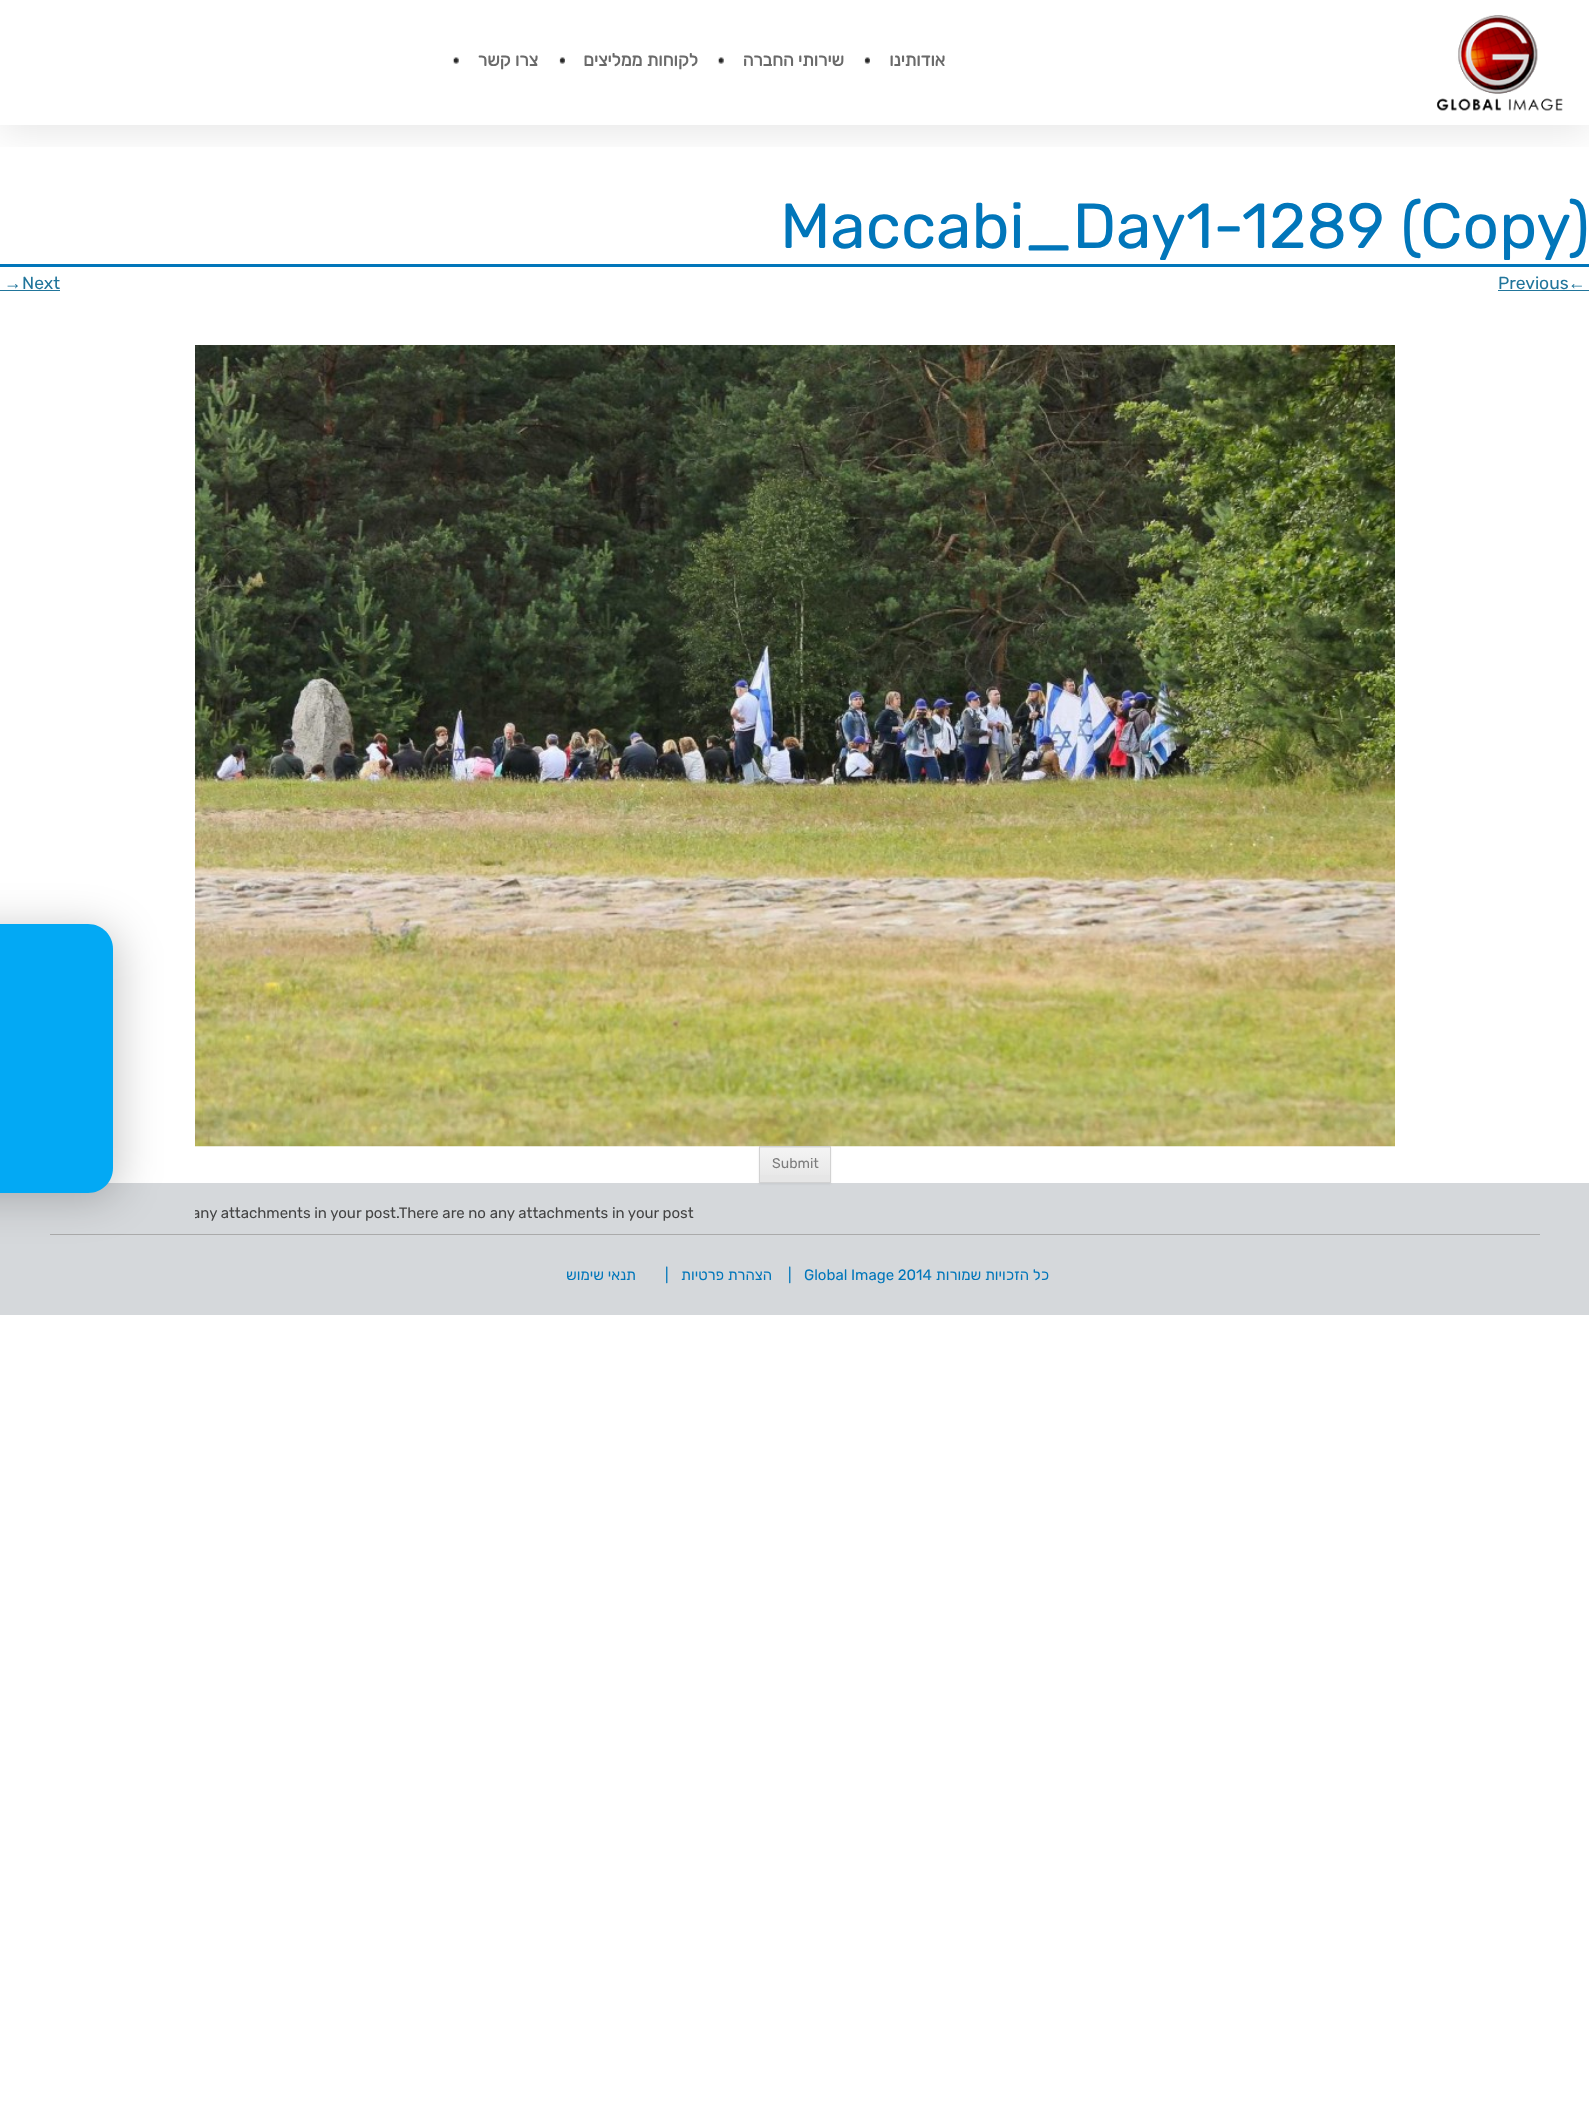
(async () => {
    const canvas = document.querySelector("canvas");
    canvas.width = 1589;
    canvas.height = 2114;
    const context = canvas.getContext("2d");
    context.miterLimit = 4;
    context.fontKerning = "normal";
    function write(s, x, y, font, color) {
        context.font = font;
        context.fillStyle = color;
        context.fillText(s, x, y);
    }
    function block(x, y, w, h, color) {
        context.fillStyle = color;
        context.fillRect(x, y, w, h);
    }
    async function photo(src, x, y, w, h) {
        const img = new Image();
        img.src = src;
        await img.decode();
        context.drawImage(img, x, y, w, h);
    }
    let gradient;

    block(0, 0, 1589, 2114, "rgb(255, 255, 255)");
    context.save();
    context.beginPath();
    context.rect(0, 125, 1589, 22);
    context.clip();
    context.fillStyle = "rgba(0, 0, 0, 0.1)";
    context.filter = "blur(19px)";
    context.beginPath();
    context.rect(0, 6, 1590, 125);
    context.fill();
    context.filter = "none";
    context.restore();
    await photo("media/1.png", 452, 57, 7, 7);
    context.direction = "rtl";
    write("צרו קשר", 538, 66, "bold 17.5px Rubik", "rgb(106, 106, 106)");
    await photo("media/2.png", 559, 57, 6, 7);
    write("לקוחות ממליצים", 698, 66, "bold 17.5px Rubik", "rgb(106, 106, 106)");
    await photo("media/1.png", 717, 57, 7, 7);
    write("שירותי החברה", 844, 66, "bold 17.5px Rubik", "rgb(106, 106, 106)");
    await photo("media/2.png", 864, 57, 6, 7);
    write("אודותינו", 945, 66, "bold 17.5px Rubik", "rgb(106, 106, 106)");
    await photo("media/3.png", 1436, 15, 127, 96);
    block(0, 264, 1589, 3, "rgb(1, 118, 186)");
    context.direction = "ltr";
    write("Maccabi_Day1-1289 (Copy)", 780, 248, "300 63.75px Rubik", "rgb(1, 118, 186)");
    write("→", 4, 289, "17.5px Liberation Sans", "rgb(33, 117, 155)");
    block(0, 290, 60, 1, "rgb(33, 117, 155)");
    write("Next", 22, 289, "300 17.5px Rubik", "rgb(33, 117, 155)");
    write("Previous", 1498, 289, "300 17.5px Rubik", "rgb(33, 117, 155)");
    write("←", 1568, 289, "17.5px Liberation Sans", "rgb(33, 117, 155)");
    block(1498, 290, 91, 1, "rgb(33, 117, 155)");
    await photo("media/4.png", 195, 345, 1200, 802);
    block(0, 1183, 1589, 132, "rgb(213, 216, 219)");
    context.fillStyle = "rgba(64, 64, 64, 0.1)";
    context.filter = "blur(1px)";
    context.beginPath();
    context.rect(759, 1148, 72, 36);
    context.fill();
    context.filter = "none";
    block(760, 1147, 70, 35, "rgb(230, 230, 230)");
    gradient = context.createLinearGradient(760, 1148, 760, 1181);
    gradient.addColorStop(0, "rgb(244, 244, 244)");
    gradient.addColorStop(1, "rgb(230, 230, 230)");
    context.fillStyle = gradient;
    context.fillRect(760, 1148, 70, 27);
    context.strokeStyle = "rgb(210, 210, 210)";
    context.strokeRect(759.5, 1146.5, 71, 36);
    write("Submit", 772, 1168, "300 14px Rubik", "rgb(124, 124, 124)");
    block(50, 1234, 1490, 1, "rgb(170, 170, 170)");
    context.fillStyle = "rgba(0, 0, 0, 0.22)";
    context.filter = "blur(22px)";
    context.beginPath();
    context.roundRect(-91, 929, 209, 269, 25);
    context.fill();
    context.filter = "none";
    context.fillStyle = "rgb(3, 169, 244)";
    context.beginPath();
    context.moveTo(-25, 924);
    context.lineTo(88, 924);
    context.bezierCurveTo(102, 924, 113, 935, 113, 949);
    context.lineTo(113, 1168);
    context.bezierCurveTo(113, 1182, 102, 1193, 88, 1193);
    context.lineTo(-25, 1193);
    context.closePath();
    context.fill();
    context.direction = "rtl";
    context.font = "bold 22.5px Rubik";
    context.fillStyle = "rgb(255, 255, 255)";
    context.save();
    context.translate(170, 992);
    context.rotate(90 * Math.PI / 180);
    context.fillText("כניסה לקבוצה", 0, 0);
    context.restore();
    context.save();
    context.beginPath();
    context.rect(195, 1200, 1200, 34);
    context.clip();
    context.direction = "ltr";
    write("any attachments in your post", 192, 1218, "300 15px Rubik", "rgb(68, 68, 68)");
    context.restore();
    context.direction = "ltr";
    write(".There are no any attachments in your post", 396, 1218, "300 15px Rubik", "rgb(68, 68, 68)");
    context.direction = "rtl";
    write("תנאי שימוש", 636, 1280, "300 15px Rubik", "rgb(1, 118, 186)");
    context.direction = "ltr";
    write("|", 665, 1280, "300 15px Rubik", "rgb(1, 118, 186)");
    context.direction = "rtl";
    write("הצהרת פרטיות", 772, 1280, "300 15px Rubik", "rgb(1, 118, 186)");
    context.direction = "ltr";
    write("|", 788, 1280, "300 15px Rubik", "rgb(1, 118, 186)");
    write("Global Image 2014", 804, 1280, "300 15px Rubik", "rgb(1, 118, 186)");
    context.direction = "rtl";
    write("כל הזכויות שמורות", 1049, 1280, "300 15px Rubik", "rgb(1, 118, 186)");
})();
